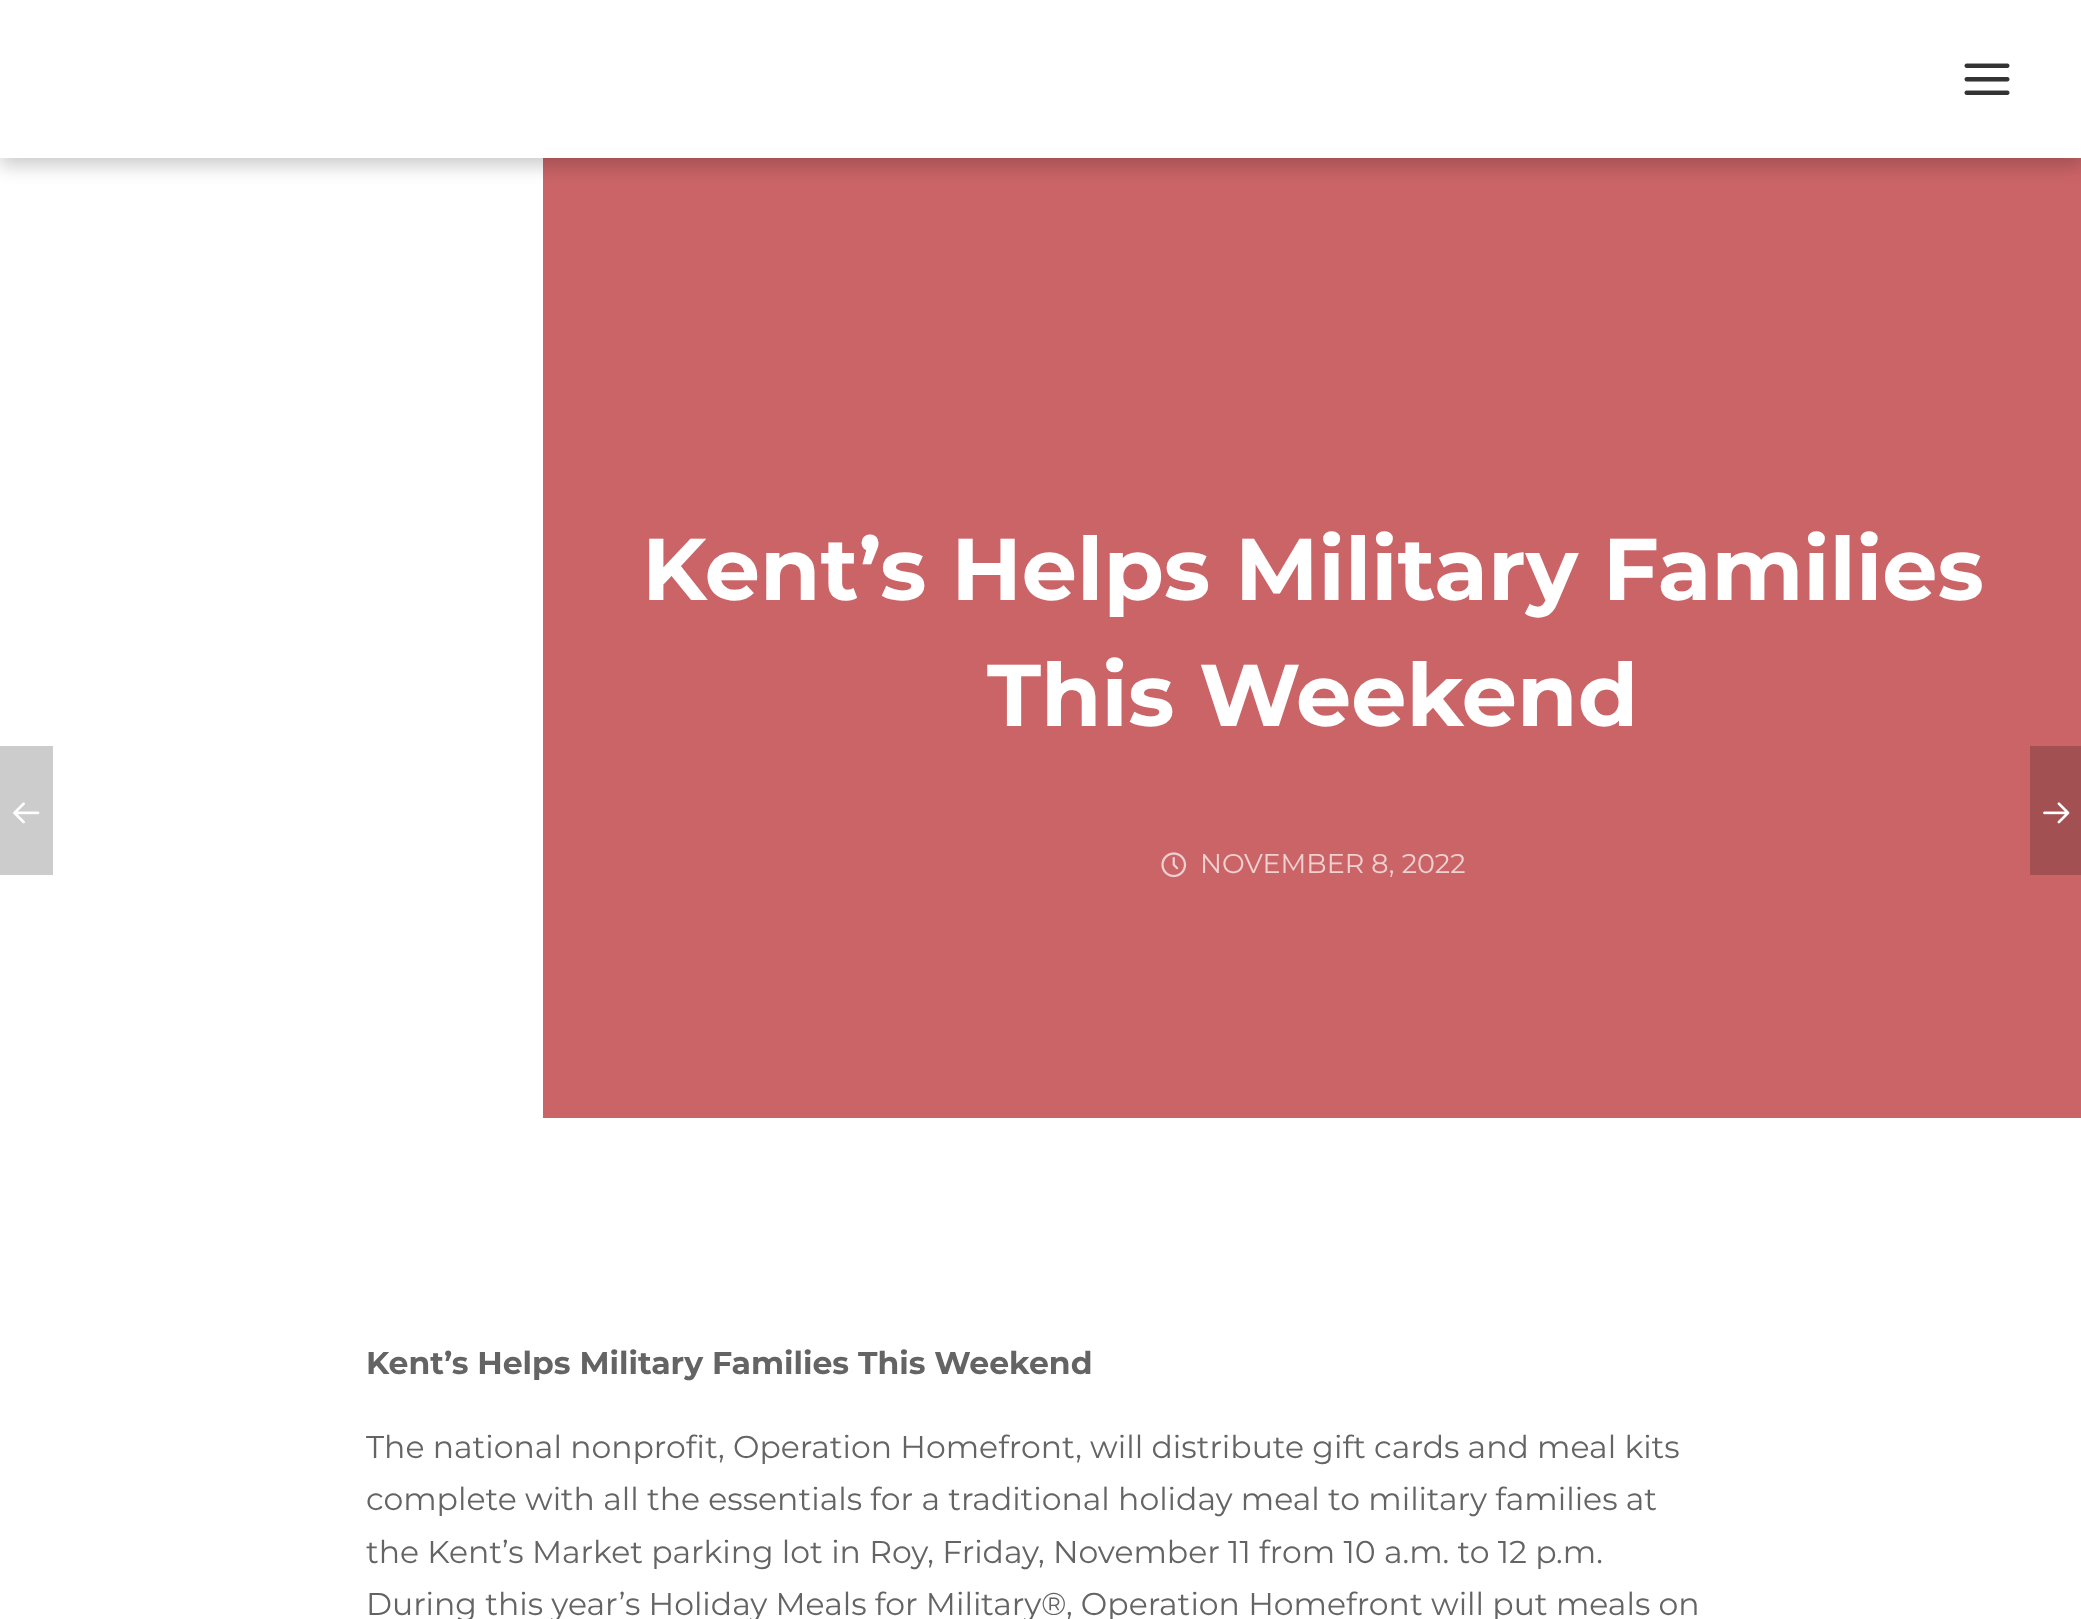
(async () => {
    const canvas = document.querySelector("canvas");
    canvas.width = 2081;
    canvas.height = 1619;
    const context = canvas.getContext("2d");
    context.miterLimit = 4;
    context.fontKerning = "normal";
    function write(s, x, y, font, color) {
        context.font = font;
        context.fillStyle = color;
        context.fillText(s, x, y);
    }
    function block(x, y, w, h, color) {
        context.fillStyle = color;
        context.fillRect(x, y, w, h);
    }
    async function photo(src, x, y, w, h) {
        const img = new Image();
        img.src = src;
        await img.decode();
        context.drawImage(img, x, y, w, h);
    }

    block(0, 0, 2081, 1619, "rgb(255, 255, 255)");
    block(543, 158, 1538, 960, "rgb(203, 100, 103)");
    context.save();
    context.beginPath();
    context.moveTo(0, 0);
    context.lineTo(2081, 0);
    context.lineTo(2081, 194);
    context.lineTo(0, 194);
    context.closePath();
    context.moveTo(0, 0);
    context.lineTo(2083, 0);
    context.lineTo(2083, 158);
    context.lineTo(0, 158);
    context.closePath();
    context.clip("evenodd");
    context.fillStyle = "rgba(0, 0, 0, 0.2)";
    context.filter = "blur(9px)";
    context.beginPath();
    context.rect(0, 9, 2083, 157);
    context.fill();
    context.filter = "none";
    context.restore();
    await photo("media/1.png", 1964, 63, 46, 32);
    write("Kent’s Helps Military Families", 642, 600, "bold 87.5px Montserrat", "rgb(255, 255, 255)");
    write("This Weekend", 987, 726, "bold 87.5px Montserrat", "rgb(255, 255, 255)");
    await photo("media/2.png", 1161, 852, 26, 26);
    write("NOVEMBER 8, 2022", 1200, 873, "27px Montserrat", "rgb(239, 209, 209)");
    block(0, 746, 53, 129, "rgb(204, 204, 204)");
    await photo("media/3.png", 13, 802, 27, 22);
    block(2030, 746, 51, 129, "rgb(162, 80, 82)");
    await photo("media/4.png", 2043, 802, 27, 22);
    write("Kent’s Helps Military Families This Weekend", 366, 1374, "bold 31.5px Montserrat", "rgb(100, 100, 100)");
    write("The national nonprofit, Operation Homefront, will distribute gift cards and meal kits", 366, 1458, "31.5px Montserrat", "rgb(100, 100, 100)");
    write("complete with all the essentials for a traditional holiday meal to military families at", 366, 1510, "31.5px Montserrat", "rgb(100, 100, 100)");
    write("the Kent’s Market parking lot in Roy, Friday, November 11 from 10 a.m. to 12 p.m.", 366, 1563, "31.5px Montserrat", "rgb(100, 100, 100)");
    write("During this year’s Holiday Meals for Military®, Operation Homefront will put meals on", 366, 1615, "31.5px Montserrat", "rgb(100, 100, 100)");
})();
